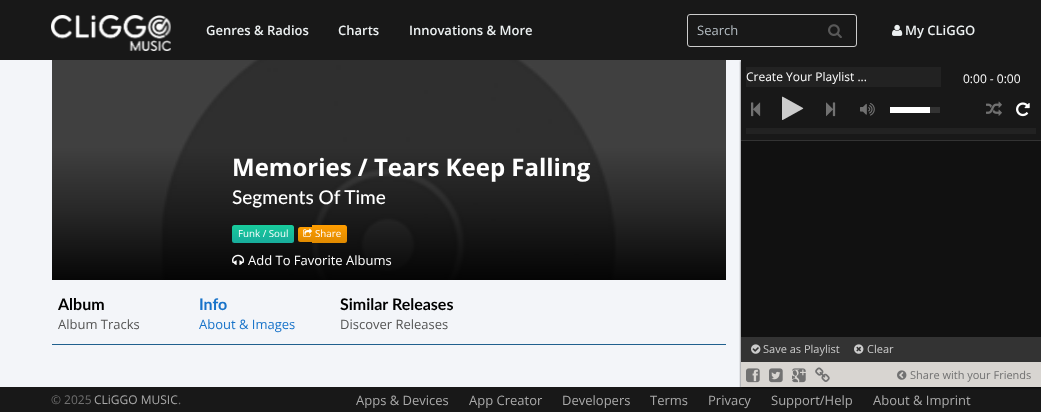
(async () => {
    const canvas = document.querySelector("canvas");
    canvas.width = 1041;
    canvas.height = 412;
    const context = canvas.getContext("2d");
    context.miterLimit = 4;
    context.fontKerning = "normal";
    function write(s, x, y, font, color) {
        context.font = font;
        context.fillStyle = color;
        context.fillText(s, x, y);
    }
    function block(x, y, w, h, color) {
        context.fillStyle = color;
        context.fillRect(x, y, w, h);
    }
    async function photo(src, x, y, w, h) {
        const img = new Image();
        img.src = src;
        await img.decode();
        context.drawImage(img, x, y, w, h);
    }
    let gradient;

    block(0, 0, 1041, 412, "rgb(243, 245, 249)");
    block(0, 387, 1041, 25, "rgb(24, 24, 24)");
    context.fillStyle = "rgba(0, 0, 0, 0.75)";
    context.filter = "blur(1px)";
    context.beginPath();
    context.rect(741, 61, 300, 327);
    context.fill();
    context.filter = "none";
    block(0, 0, 1041, 60, "rgb(24, 24, 24)");
    await photo("media/1.png", 51, 15, 120, 36);
    write("Genres & Radios", 206, 35, "600 13px Open Sans", "rgb(236, 240, 241)");
    write("Charts", 338, 35, "600 13px Open Sans", "rgb(236, 240, 241)");
    write("Innovations & More", 409, 35, "600 13px Open Sans", "rgb(236, 240, 241)");
    context.beginPath();
    context.roundRect(687.5, 14.5, 169, 32, 2.5);
    context.strokeStyle = "rgb(204, 204, 204)";
    context.stroke();
    write("Search", 697, 35, "13px Open Sans", "rgb(180, 188, 194)");
    await photo("media/2.png", 828, 24, 14, 14);
    await photo("media/3.png", 892, 24, 11, 12);
    write("My CLiGGO", 905, 35, "600 13px Open Sans", "rgb(236, 240, 241)");
    await photo("media/4.png", 52, 60, 674, 220);
    write("Memories / Tears Keep Falling", 232, 176, "bold 24px Open Sans", "rgb(255, 255, 255)");
    write("Segments Of Time", 232, 204, "500 19px Lato", "rgb(255, 255, 255)");
    gradient = context.createLinearGradient(263, 225, 263, 243);
    gradient.addColorStop(0, "rgb(24, 204, 156)");
    gradient.addColorStop(1, "rgb(24, 172, 156)");
    context.fillStyle = gradient;
    context.beginPath();
    context.roundRect(232, 225, 62, 18, 2.5);
    context.fill();
    write("Funk / Soul", 238, 237, "9.75px Open Sans", "rgb(255, 255, 255)");
    gradient = context.createLinearGradient(305, 227, 305, 242);
    gradient.addColorStop(0, "rgb(255, 157, 0)");
    gradient.addColorStop(1, "rgb(224, 138, 0)");
    context.fillStyle = gradient;
    context.beginPath();
    context.roundRect(298, 227, 14, 15, [2.5, 0, 0, 2.5]);
    context.fill();
    gradient = context.createLinearGradient(330, 225, 330, 243);
    gradient.addColorStop(0, "rgb(255, 157, 0)");
    gradient.addColorStop(1, "rgb(224, 138, 0)");
    context.fillStyle = gradient;
    context.beginPath();
    context.roundRect(312, 225, 35, 18, [0, 2.5, 2.5, 0]);
    context.fill();
    await photo("media/5.png", 303, 228, 9, 9);
    write("Share", 315, 237, "9.75px Open Sans", "rgb(255, 255, 255)");
    await photo("media/6.png", 232, 254, 13, 11);
    write("Add To Favorite Albums", 248, 265, "13px Open Sans", "rgb(255, 255, 255)");
    write("Album", 58, 310, "bold 16px Lato", "rgb(0, 0, 0)");
    write("Album Tracks", 58, 329, "13px Open Sans", "rgb(85, 85, 85)");
    write("Info", 199, 310, "bold 16px Lato", "rgb(24, 115, 201)");
    write("About & Images", 199, 329, "13px Open Sans", "rgb(24, 115, 201)");
    write("Similar Releases", 340, 310, "bold 16px Lato", "rgb(0, 0, 0)");
    write("Discover Releases", 340, 329, "13px Open Sans", "rgb(85, 85, 85)");
    block(52, 344, 674, 1, "rgb(32, 96, 142)");
    block(741, 60, 300, 80, "rgb(24, 24, 24)");
    block(741, 140, 300, 1, "rgb(51, 51, 51)");
    block(746, 67, 195, 20, "rgb(34, 34, 34)");
    write("Create Your Playlist ...", 746, 81, "12px Open Sans", "rgb(255, 255, 255)");
    write("0:00 - 0:00", 963, 83, "12px Open Sans", "rgb(255, 255, 255)");
    await photo("media/7.png", 751, 102, 10, 15);
    await photo("media/8.png", 782, 96, 22, 24);
    await photo("media/9.png", 826, 102, 10, 15);
    await photo("media/10.png", 860, 103, 15, 13);
    block(890, 107, 40, 6, "rgb(255, 255, 255)");
    block(930, 107, 10, 6, "rgb(51, 51, 51)");
    await photo("media/11.png", 986, 101, 16, 15);
    await photo("media/12.png", 1016, 102, 14, 15);
    block(746, 128, 290, 6, "rgb(34, 34, 34)");
    block(741, 141, 300, 196, "rgb(17, 17, 17)");
    block(741, 337, 300, 25, "rgb(51, 51, 51)");
    await photo("media/13.png", 751, 344, 10, 10);
    write("Save as Playlist", 763, 353, "11px Open Sans", "rgb(204, 204, 204)");
    await photo("media/14.png", 854, 344, 10, 10);
    write("Clear", 867, 353, "11px Open Sans", "rgb(204, 204, 204)");
    block(741, 362, 300, 25, "rgb(216, 213, 209)");
    await photo("media/15.png", 746, 368, 14, 15);
    await photo("media/16.png", 769, 368, 14, 15);
    await photo("media/17.png", 792, 368, 14, 15);
    await photo("media/18.png", 815, 367, 15, 15);
    await photo("media/19.png", 897, 370, 10, 10);
    write("Share with your Friends", 910, 379, "11px Open Sans", "rgb(113, 113, 113)");
    write("© 2025", 51, 404, "12px Open Sans", "rgb(113, 113, 113)");
    write("CLiGGO MUSIC", 94, 404, "12px Open Sans", "rgb(170, 170, 170)");
    write(".", 178, 404, "12px Open Sans", "rgb(113, 113, 113)");
    write("Apps & Devices", 356, 405, "13px Open Sans", "rgb(170, 170, 170)");
    write("App Creator", 469, 405, "13px Open Sans", "rgb(170, 170, 170)");
    write("Developers", 562, 405, "13px Open Sans", "rgb(170, 170, 170)");
    write("Terms", 650, 405, "13px Open Sans", "rgb(170, 170, 170)");
    write("Privacy", 708, 405, "13px Open Sans", "rgb(170, 170, 170)");
    write("Support/Help", 771, 405, "13px Open Sans", "rgb(170, 170, 170)");
    write("About & Imprint", 873, 405, "13px Open Sans", "rgb(170, 170, 170)");
})();
